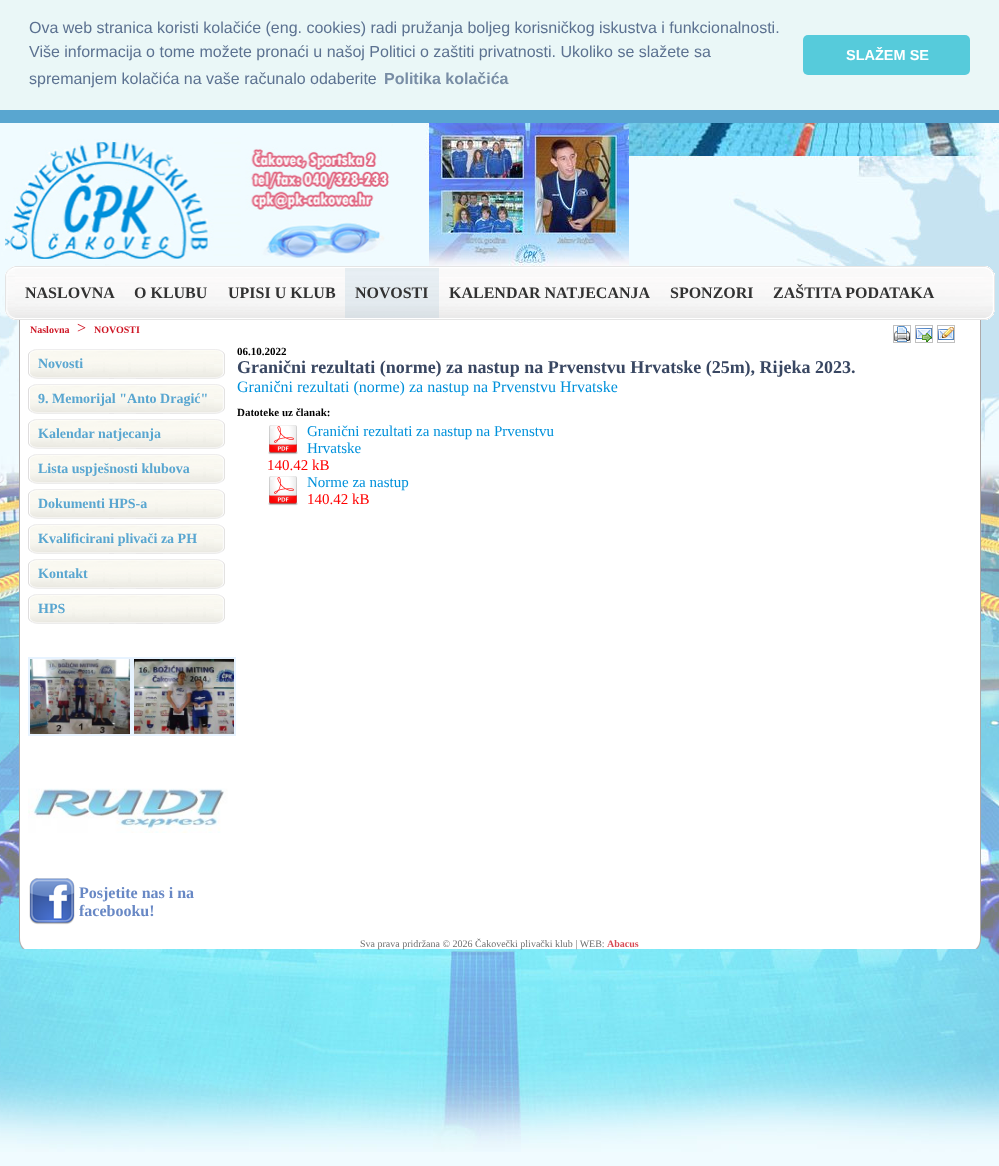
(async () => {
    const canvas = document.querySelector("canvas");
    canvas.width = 999;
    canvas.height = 1166;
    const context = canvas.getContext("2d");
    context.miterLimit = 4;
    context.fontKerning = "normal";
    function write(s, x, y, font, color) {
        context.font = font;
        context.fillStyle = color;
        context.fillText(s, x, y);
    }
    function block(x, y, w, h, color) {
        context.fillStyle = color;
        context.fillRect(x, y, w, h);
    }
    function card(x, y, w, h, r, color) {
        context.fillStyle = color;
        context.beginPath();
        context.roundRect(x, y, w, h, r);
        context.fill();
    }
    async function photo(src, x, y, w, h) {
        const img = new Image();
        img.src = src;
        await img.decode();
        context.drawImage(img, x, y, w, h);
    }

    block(0, 0, 999, 1166, "rgb(240, 251, 255)");
    await photo("media/1.png", 0, 123, 999, 1029);
    block(0, 0, 999, 110, "rgb(234, 247, 247)");
    write("Ova web stranica koristi kolačiće (eng. cookies) radi pružanja boljeg korisničkog iskustva i funkcionalnosti.", 29, 33, "16px Liberation Sans", "rgb(92, 114, 145)");
    write("Više informacija o tome možete pronaći u našoj Politici o zaštiti privatnosti. Ukoliko se slažete sa", 29, 57, "16px Liberation Sans", "rgb(92, 114, 145)");
    write("spremanjem kolačića na vaše računalo odaberite", 29, 84, "16px Liberation Sans", "rgb(92, 114, 145)");
    write("Politika kolačića", 384, 84, "bold 16px Liberation Sans", "rgb(120, 141, 165)");
    card(803, 35, 167, 40, 5, "rgb(86, 203, 219)");
    write("SLAŽEM SE", 846, 60, "bold 14.5px Liberation Sans", "rgb(255, 255, 255)");
    block(0, 110, 999, 13, "rgb(89, 166, 208)");
    await photo("media/2.png", 5, 123, 385, 136);
    await photo("media/3.png", 429, 123, 200, 143);
    await photo("media/4.png", 5, 266, 10, 54);
    await photo("media/5.png", 985, 266, 10, 54);
    await photo("media/6.png", 15, 266, 970, 54);
    write("NASLOVNA", 25, 298, "bold 16px Liberation Serif", "rgb(50, 50, 50)");
    write("O KLUBU", 134, 298, "bold 16px Liberation Serif", "rgb(50, 50, 50)");
    write("UPISI U KLUB", 228, 298, "bold 16px Liberation Serif", "rgb(50, 50, 50)");
    await photo("media/7.png", 345, 268, 94, 50);
    write("NOVOSTI", 355, 298, "bold 16px Liberation Serif", "rgb(50, 50, 50)");
    write("KALENDAR NATJECANJA", 449, 298, "bold 16px Liberation Serif", "rgb(50, 50, 50)");
    write("SPONZORI", 670, 298, "bold 16px Liberation Serif", "rgb(50, 50, 50)");
    write("ZAŠTITA PODATAKA", 773, 298, "bold 16px Liberation Serif", "rgb(50, 50, 50)");
    block(20, 320, 960, 618, "rgb(255, 255, 255)");
    block(980, 320, 1, 618, "rgb(174, 170, 170)");
    block(19, 320, 1, 618, "rgb(174, 170, 170)");
    write("Naslovna", 30, 333, "bold 10px Liberation Serif", "rgb(206, 22, 37)");
    write(">", 77, 333, "16px Liberation Serif", "rgb(206, 22, 37)");
    write("NOVOSTI", 94, 333, "bold 10px Liberation Serif", "rgb(206, 22, 37)");
    context.strokeStyle = "rgb(192, 192, 192)";
    context.strokeRect(893.5, 325.5, 17, 17);
    await photo("media/8.png", 894, 326, 16, 16);
    context.strokeRect(915.5, 325.5, 17, 17);
    await photo("media/9.png", 916, 328, 16, 14);
    context.strokeRect(937.5, 325.5, 17, 17);
    await photo("media/10.png", 938, 327, 16, 13);
    await photo("media/11.png", 28, 349, 197, 30);
    write("Novosti", 38, 368, "bold 14px Liberation Serif", "rgb(89, 166, 208)");
    await photo("media/11.png", 28, 384, 197, 30);
    write("9. Memorijal \"Anto Dragić\"", 38, 403, "bold 14px Liberation Serif", "rgb(89, 166, 208)");
    await photo("media/11.png", 28, 419, 197, 30);
    write("Kalendar natjecanja", 38, 438, "bold 14px Liberation Serif", "rgb(89, 166, 208)");
    await photo("media/11.png", 28, 454, 197, 30);
    write("Lista uspješnosti klubova", 38, 473, "bold 14px Liberation Serif", "rgb(89, 166, 208)");
    await photo("media/11.png", 28, 489, 197, 30);
    write("Dokumenti HPS-a", 38, 508, "bold 14px Liberation Serif", "rgb(89, 166, 208)");
    await photo("media/11.png", 28, 524, 197, 30);
    write("Kvalificirani plivači za PH", 38, 543, "bold 14px Liberation Serif", "rgb(89, 166, 208)");
    await photo("media/11.png", 28, 559, 197, 30);
    write("Kontakt", 38, 578, "bold 14px Liberation Serif", "rgb(89, 166, 208)");
    await photo("media/11.png", 28, 594, 197, 30);
    write("HPS", 38, 613, "bold 14px Liberation Serif", "rgb(89, 166, 208)");
    context.strokeStyle = "rgb(231, 243, 255)";
    context.lineWidth = 2;
    context.strokeRect(29, 658, 102, 77);
    await photo("media/12.png", 30, 659, 100, 75);
    context.strokeRect(133, 658, 102, 77);
    await photo("media/13.png", 134, 659, 100, 75);
    await photo("media/14.png", 28, 788, 200, 45);
    await photo("media/15.png", 29, 878, 46, 47);
    write("Posjetite nas i na", 79, 898, "bold 16px Liberation Serif", "rgb(104, 136, 197)");
    write("facebooku!", 79, 916, "bold 16px Liberation Serif", "rgb(104, 136, 197)");
    write("06.10.2022", 237, 355, "bold 11px Liberation Serif", "rgb(0, 0, 0)");
    write("Granični rezultati (norme) za nastup na Prvenstvu Hrvatske (25m), Rijeka 2023.", 237, 373, "bold 18px Liberation Serif", "rgb(57, 71, 98)");
    write("Granični rezultati (norme) za nastup na Prvenstvu Hrvatske", 237, 392, "16px Liberation Serif", "rgb(0, 145, 219)");
    write("Datoteke uz članak:", 237, 416, "bold 11px Liberation Serif", "rgb(0, 0, 0)");
    write("Granični rezultati za nastup na Prvenstvu", 307, 436, "15px Liberation Serif", "rgb(0, 145, 219)");
    write("Hrvatske", 307, 453, "15px Liberation Serif", "rgb(0, 145, 219)");
    write("140.42 kB", 267, 470, "15px Liberation Serif", "rgb(255, 0, 0)");
    await photo("media/16.png", 268, 425, 30, 30);
    await photo("media/16.png", 268, 476, 30, 30);
    write("Norme za nastup", 307, 487, "15px Liberation Serif", "rgb(0, 145, 219)");
    write("140.42 kB", 307, 504, "15px Liberation Serif", "rgb(255, 0, 0)");
    await photo("media/17.png", 19, 938, 962, 11);
    write("Sva prava pridržana © 2026 Čakovečki plivački klub | WEB:", 360, 947, "10px Liberation Serif", "rgb(110, 112, 112)");
    write("Abacus", 607, 947, "bold 10px Liberation Serif", "rgb(215, 76, 85)");
})();
